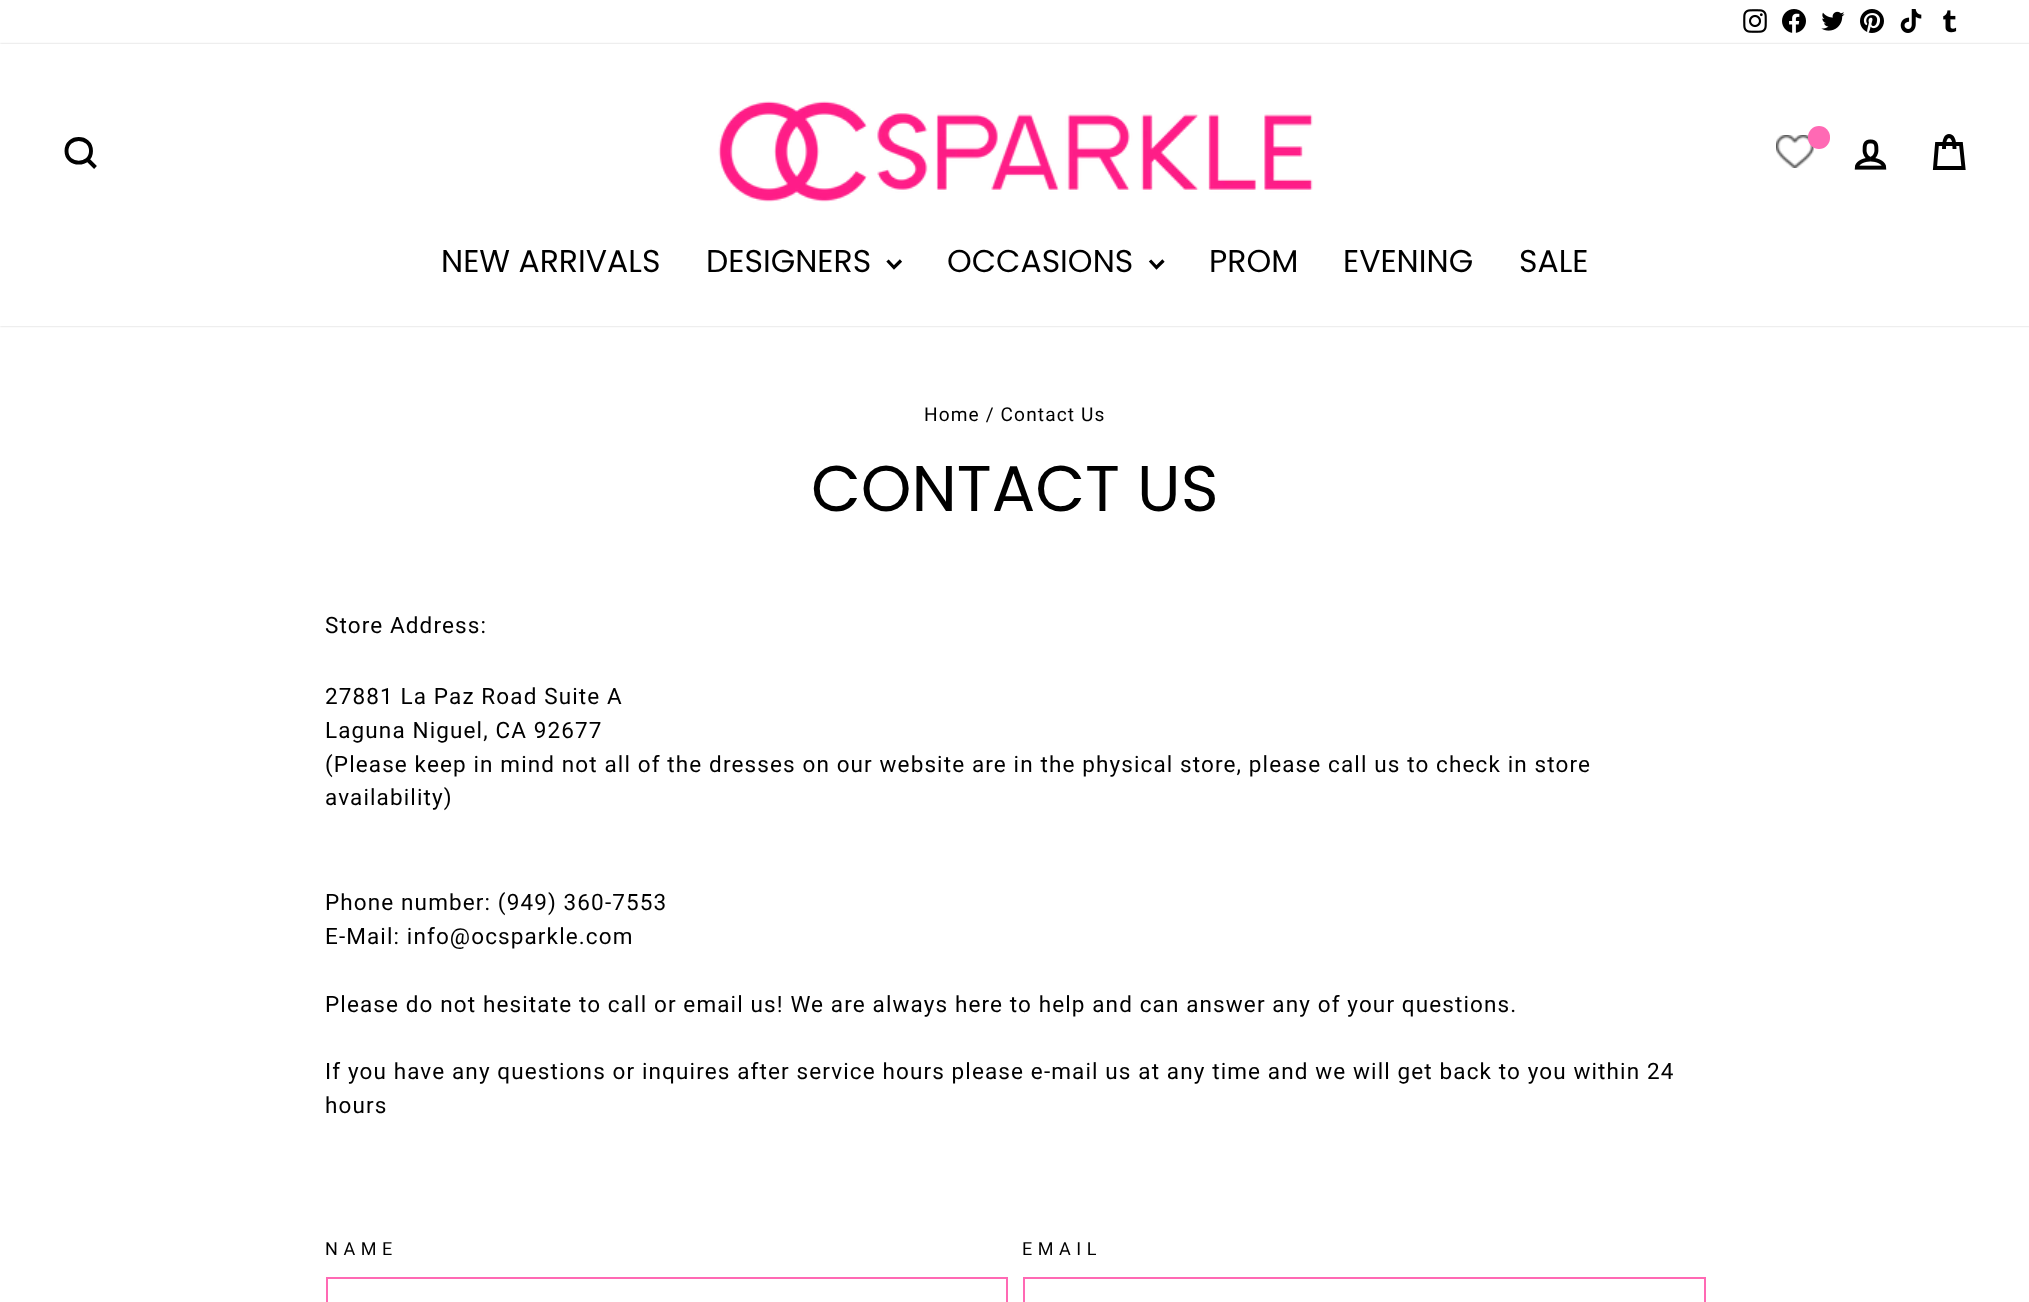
(async () => {
    const canvas = document.querySelector("canvas");
    canvas.width = 2029;
    canvas.height = 1302;
    const context = canvas.getContext("2d");
    context.miterLimit = 4;
    context.fontKerning = "normal";
    function write(s, x, y, font, color) {
        context.font = font;
        context.fillStyle = color;
        context.fillText(s, x, y);
    }
    function block(x, y, w, h, color) {
        context.fillStyle = color;
        context.fillRect(x, y, w, h);
    }
    function card(x, y, w, h, r, color) {
        context.fillStyle = color;
        context.beginPath();
        context.roundRect(x, y, w, h, r);
        context.fill();
    }
    async function photo(src, x, y, w, h) {
        const img = new Image();
        img.src = src;
        await img.decode();
        context.drawImage(img, x, y, w, h);
    }

    block(0, 0, 2029, 1302, "rgb(255, 255, 255)");
    await photo("media/1.png", 1743, 9, 24, 24);
    await photo("media/2.png", 1782, 9, 24, 24);
    await photo("media/3.png", 1821, 11, 24, 20);
    await photo("media/4.png", 1860, 9, 24, 24);
    await photo("media/5.png", 1900, 9, 22, 24);
    await photo("media/6.png", 1943, 10, 14, 23);
    context.fillStyle = "rgba(0, 0, 0, 0.2)";
    context.filter = "blur(1px)";
    context.beginPath();
    context.rect(0, 44, 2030, 282);
    context.fill();
    context.filter = "none";
    block(0, 44, 2029, 282, "rgb(255, 255, 255)");
    context.beginPath();
    context.moveTo(91, 151);
    context.bezierCurveTo(91, 166.5, 66.5, 166.5, 66.5, 151);
    context.bezierCurveTo(66.5, 135, 91, 135, 91, 151);
    context.closePath();
    context.moveTo(95.5, 167.5);
    context.lineTo(87.5, 159.5);
    context.strokeStyle = "rgb(0, 0, 0)";
    context.lineWidth = 3.9;
    context.stroke();
    await photo("media/7.png", 718, 101, 595, 101);
    await photo("media/8.png", 1776, 135, 38, 33);
    card(1808, 126, 22, 23, 11, "rgb(255, 105, 180)");
    await photo("media/9.png", 1854, 139, 33, 31);
    context.beginPath();
    context.moveTo(1944, 149);
    context.bezierCurveTo(1944, 138.5, 1946, 136, 1949, 136);
    context.bezierCurveTo(1952, 136, 1954.5, 138.5, 1954.5, 149);
    context.moveTo(1937, 144);
    context.lineTo(1961, 144);
    context.lineTo(1963.5, 168);
    context.lineTo(1935, 168);
    context.closePath();
    context.stroke();
    write("NEW ARRIVALS", 441, 272, "31.5px Poppins", "rgb(0, 0, 0)");
    write("DESIGNERS", 706, 272, "31.5px Poppins", "rgb(0, 0, 0)");
    context.beginPath();
    context.moveTo(887.5, 260.5);
    context.lineTo(894, 267.5);
    context.lineTo(901, 260.5);
    context.lineWidth = 3.2;
    context.stroke();
    write("OCCASIONS", 947, 272, "31.5px Poppins", "rgb(0, 0, 0)");
    context.beginPath();
    context.moveTo(1150, 260.5);
    context.lineTo(1156.5, 267.5);
    context.lineTo(1163.5, 260.5);
    context.stroke();
    write("PROM", 1209, 272, "31.5px Poppins", "rgb(0, 0, 0)");
    write("EVENING", 1343, 272, "31.5px Poppins", "rgb(0, 0, 0)");
    write("SALE", 1519, 272, "31.5px Poppins", "rgb(0, 0, 0)");
    context.letterSpacing = "1.12px";
    write("Home / Contact Us", 924, 421, "19.1px Roboto", "rgb(0, 0, 0)");
    context.letterSpacing = "0px";
    write("CONTACT US", 811, 511, "64.5px Poppins", "rgb(0, 0, 0)");
    context.letterSpacing = "1.12px";
    write("Store Address:", 325, 633, "22.5px Roboto", "rgb(0, 0, 0)");
    write("27881 La Paz Road Suite A", 325, 704, "22.5px Roboto", "rgb(0, 0, 0)");
    write("Laguna Niguel, CA 92677", 325, 738, "22.5px Roboto", "rgb(0, 0, 0)");
    write("(Please keep in mind not all of the dresses on our website are in the physical store, please call us to check in store", 325, 772, "22.5px Roboto", "rgb(0, 0, 0)");
    write("availability)", 325, 805, "22.5px Roboto", "rgb(0, 0, 0)");
    write("Phone number: (949) 360-7553", 325, 910, "22.5px Roboto", "rgb(0, 0, 0)");
    write("E-Mail: info@ocsparkle.com", 325, 944, "22.5px Roboto", "rgb(0, 0, 0)");
    write("Please do not hesitate to call or email us! We are always here to help and can answer any of your questions.", 325, 1012, "22.5px Roboto", "rgb(0, 0, 0)");
    write("If you have any questions or inquires after service hours please e-mail us at any time and we will get back to you within 24", 325, 1079, "22.5px Roboto", "rgb(0, 0, 0)");
    write("hours", 325, 1113, "22.5px Roboto", "rgb(0, 0, 0)");
    context.letterSpacing = "5.5px";
    write("NAME", 325, 1255, "18px Roboto", "rgb(0, 0, 0)");
    context.strokeStyle = "rgb(255, 105, 180)";
    context.lineWidth = 2;
    context.strokeRect(327, 1278, 680, 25);
    write("EMAIL", 1022, 1255, "18px Roboto", "rgb(0, 0, 0)");
    context.strokeRect(1024, 1278, 681, 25);
})();
